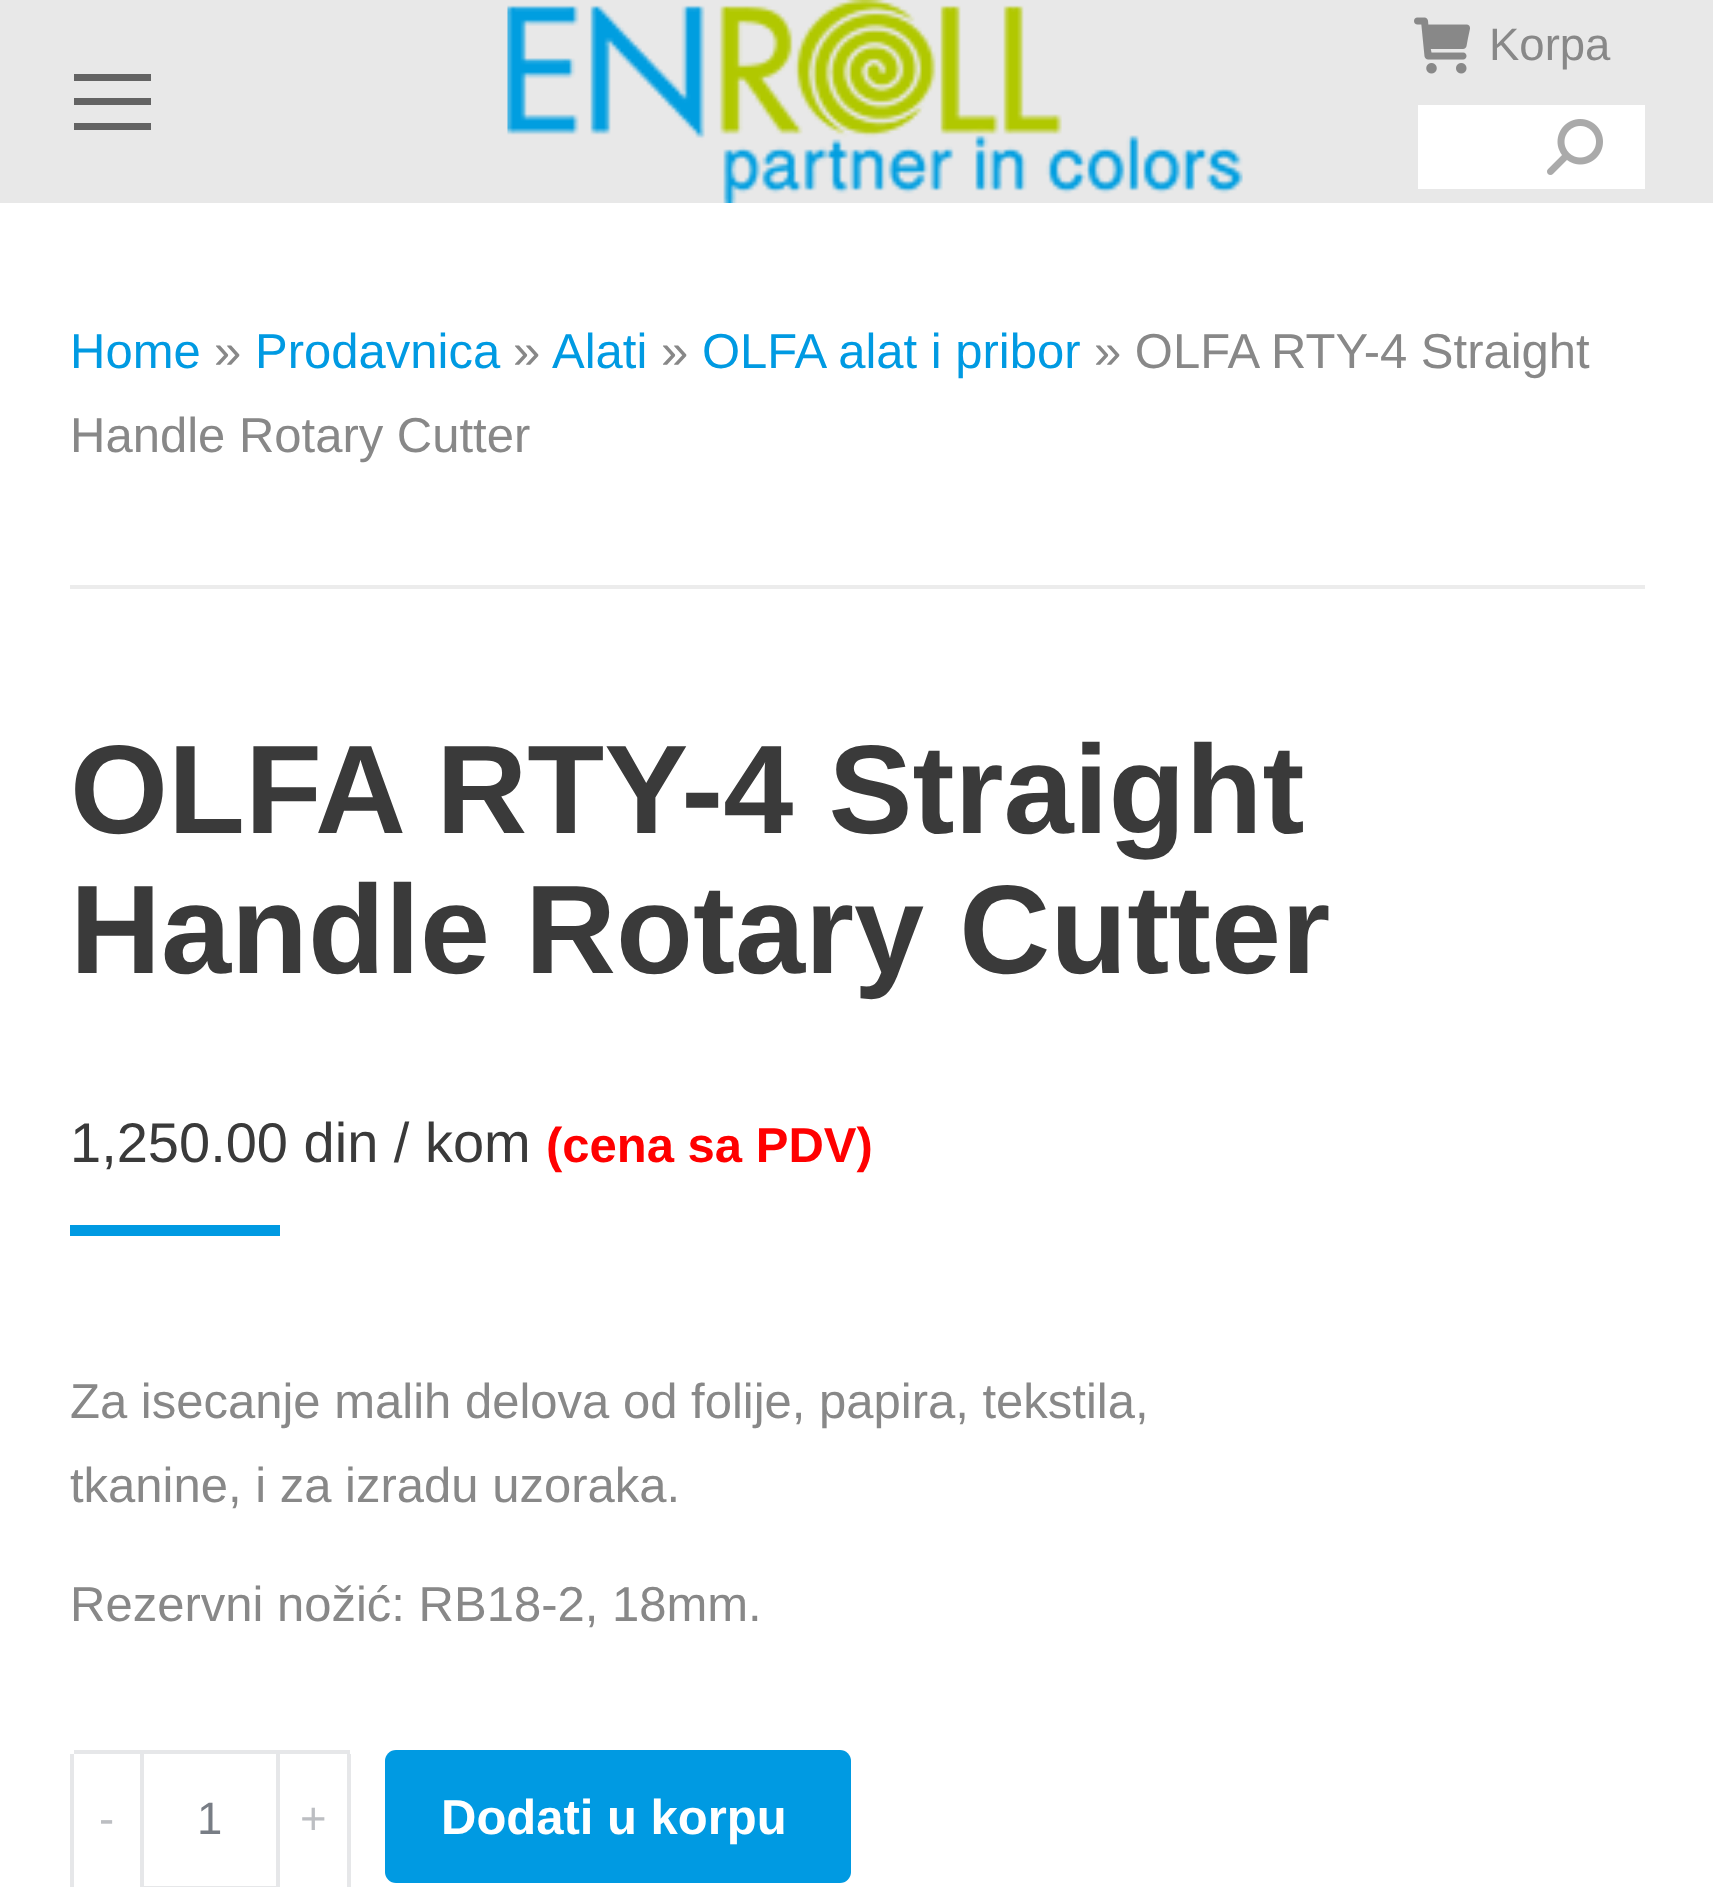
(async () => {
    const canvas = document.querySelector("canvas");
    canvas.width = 1713;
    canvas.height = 1887;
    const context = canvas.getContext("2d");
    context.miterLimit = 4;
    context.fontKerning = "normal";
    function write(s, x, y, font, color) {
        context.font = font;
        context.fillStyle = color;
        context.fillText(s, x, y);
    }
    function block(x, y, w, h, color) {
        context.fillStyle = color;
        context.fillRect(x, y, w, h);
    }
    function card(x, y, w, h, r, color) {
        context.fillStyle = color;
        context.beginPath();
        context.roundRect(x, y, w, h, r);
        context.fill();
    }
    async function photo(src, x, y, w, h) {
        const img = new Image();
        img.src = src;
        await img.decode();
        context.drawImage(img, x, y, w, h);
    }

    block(0, 0, 1713, 1887, "rgb(255, 255, 255)");
    block(0, 0, 1713, 203, "rgb(232, 232, 232)");
    await photo("media/1.png", 507, 0, 736, 203);
    await photo("media/2.png", 1414, 17, 56, 57);
    write("Korpa", 1489, 60, "45.5px Liberation Sans", "rgb(136, 136, 136)");
    block(1418, 105, 227, 84, "rgb(255, 255, 255)");
    await photo("media/3.png", 1547, 119, 56, 56);
    block(74, 74, 77, 7, "rgb(99, 99, 99)");
    block(74, 98, 77, 7, "rgb(99, 99, 99)");
    block(74, 123, 77, 7, "rgb(99, 99, 99)");
    block(70, 585, 1575, 4, "rgb(236, 236, 236)");
    write("Home", 70, 368, "49px Liberation Sans", "rgb(0, 154, 226)");
    write("»", 214, 368, "49px Liberation Sans", "rgb(136, 136, 136)");
    write("Prodavnica", 255, 368, "49px Liberation Sans", "rgb(0, 154, 226)");
    write("»", 513, 368, "49px Liberation Sans", "rgb(136, 136, 136)");
    write("Alati", 552, 368, "49px Liberation Sans", "rgb(0, 154, 226)");
    write("»", 661, 368, "49px Liberation Sans", "rgb(136, 136, 136)");
    write("OLFA alat i pribor", 702, 368, "49px Liberation Sans", "rgb(0, 154, 226)");
    write("» OLFA RTY-4 Straight", 1094, 368, "49px Liberation Sans", "rgb(136, 136, 136)");
    write("Handle Rotary Cutter", 70, 452, "49px Liberation Sans", "rgb(136, 136, 136)");
    write("OLFA RTY-4 Straight", 70, 833, "bold 126px Liberation Sans", "rgb(58, 58, 58)");
    write("Handle Rotary Cutter", 70, 973, "bold 126px Liberation Sans", "rgb(58, 58, 58)");
    write("1,250.00 din / kom", 70, 1162, "56px Liberation Sans", "rgb(58, 58, 58)");
    write("(cena sa PDV)", 546, 1162, "bold 49px Liberation Sans", "rgb(255, 0, 0)");
    block(70, 1225, 210, 11, "rgb(0, 154, 226)");
    write("Za isecanje malih delova od folije, papira, tekstila,", 70, 1418, "49px Liberation Sans", "rgb(136, 136, 136)");
    write("tkanine, i za izradu uzoraka.", 70, 1502, "49px Liberation Sans", "rgb(136, 136, 136)");
    write("Rezervni nožić: RB18-2, 18mm.", 70, 1621, "49px Liberation Sans", "rgb(136, 136, 136)");
    block(74, 1750, 66, 4, "rgb(230, 231, 233)");
    block(70, 1754, 4, 133, "rgb(230, 231, 233)");
    write("-", 99, 1834, "45.5px Liberation Sans", "rgb(188, 190, 194)");
    context.strokeStyle = "rgb(230, 231, 233)";
    context.lineWidth = 4;
    context.strokeRect(142, 1752, 136, 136);
    write("1", 197, 1834, "45.5px Liberation Sans", "rgb(120, 125, 133)");
    block(280, 1750, 70, 4, "rgb(230, 231, 233)");
    block(347, 1754, 4, 133, "rgb(230, 231, 233)");
    write("+", 300, 1834, "45.5px Liberation Sans", "rgb(188, 190, 194)");
    card(385, 1750, 466, 133, 11, "rgb(0, 154, 226)");
    write("Dodati u korpu", 441, 1834, "bold 49px Liberation Sans", "rgb(255, 255, 255)");
})();
